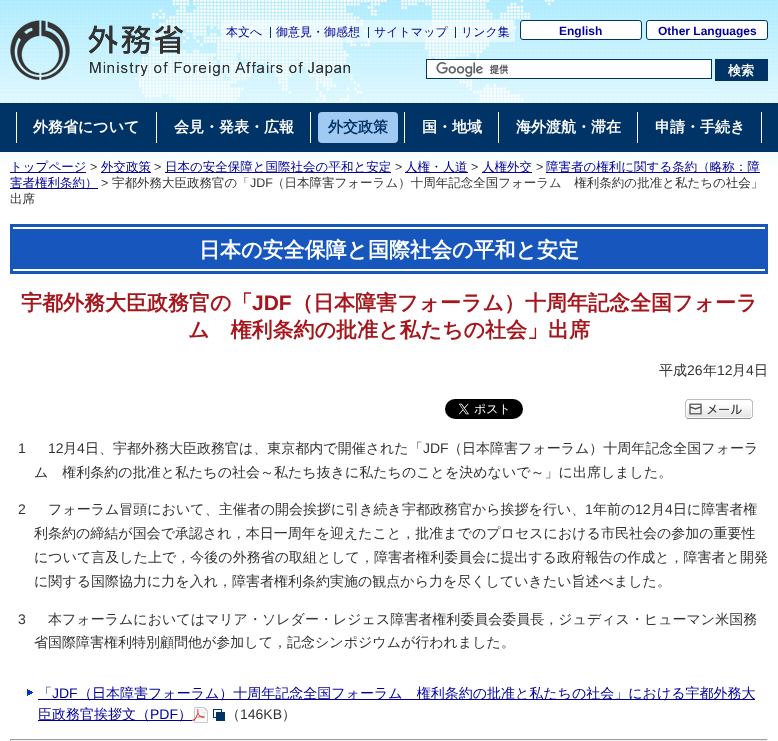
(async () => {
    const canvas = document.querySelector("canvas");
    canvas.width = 778;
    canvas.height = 741;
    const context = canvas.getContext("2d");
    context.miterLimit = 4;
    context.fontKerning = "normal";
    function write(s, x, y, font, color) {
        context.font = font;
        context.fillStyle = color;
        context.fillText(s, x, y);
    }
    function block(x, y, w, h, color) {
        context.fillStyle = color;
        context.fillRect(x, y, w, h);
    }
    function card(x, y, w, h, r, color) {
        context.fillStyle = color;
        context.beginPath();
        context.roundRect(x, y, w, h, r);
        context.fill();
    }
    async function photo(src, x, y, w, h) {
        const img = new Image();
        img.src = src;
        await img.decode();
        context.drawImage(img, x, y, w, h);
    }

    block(0, 0, 778, 741, "rgb(255, 255, 255)");
    await photo("media/1.png", 0, 0, 778, 165);
    await photo("media/2.png", 135, 0, 419, 102);
    await photo("media/3.png", 10, 20, 340, 60);
    block(221, 20, 294, 22, "rgba(255, 255, 255, 0.5)");
    write("本文へ", 226, 36, "500 12px WenQuanYi Zen Hei", "rgb(0, 0, 153)");
    write("御意見・御感想", 276, 36, "500 12px WenQuanYi Zen Hei", "rgb(0, 0, 153)");
    block(270, 27, 1, 11, "rgb(0, 51, 102)");
    write("サイトマップ", 374, 36, "500 12px WenQuanYi Zen Hei", "rgb(0, 0, 153)");
    block(368, 27, 1, 11, "rgb(0, 51, 102)");
    write("リンク集", 461, 36, "500 12px WenQuanYi Zen Hei", "rgb(0, 0, 153)");
    block(455, 27, 1, 11, "rgb(0, 51, 102)");
    context.fillStyle = "rgb(255, 255, 255)";
    context.beginPath();
    context.roundRect(520.5, 20.5, 121, 19, 2.5);
    context.fill();
    context.strokeStyle = "rgb(0, 51, 102)";
    context.stroke();
    write("English", 559, 35, "bold 12px Liberation Sans", "rgb(0, 0, 153)");
    context.fillStyle = "rgb(255, 255, 255)";
    context.beginPath();
    context.roundRect(646.5, 20.5, 121, 19, 2.5);
    context.fill();
    context.stroke();
    write("Other Languages", 658, 35, "bold 12px Liberation Sans", "rgb(0, 0, 153)");
    block(427, 60, 284, 18, "rgb(255, 255, 255)");
    await photo("media/4.png", 436, 62, 73, 15);
    context.strokeRect(426.5, 59.5, 285, 19);
    block(715, 59, 53, 22, "rgb(0, 51, 102)");
    write("検索", 728, 75, "bold 13px WenQuanYi Zen Hei", "rgb(255, 255, 255)");
    block(0, 103, 778, 49, "rgb(0, 51, 102)");
    block(16, 112, 1, 31, "rgb(255, 255, 255)");
    write("外務省について", 33, 132, "bold 15px WenQuanYi Zen Hei", "rgb(255, 255, 255)");
    block(156, 112, 1, 31, "rgb(255, 255, 255)");
    write("会見・発表・広報", 174, 132, "bold 15px WenQuanYi Zen Hei", "rgb(255, 255, 255)");
    block(310, 112, 1, 31, "rgb(255, 255, 255)");
    card(318, 112, 80, 31, 4, "rgb(161, 202, 242)");
    write("外交政策", 328, 132, "bold 15px WenQuanYi Zen Hei", "rgb(0, 51, 102)");
    block(404, 112, 1, 31, "rgb(255, 255, 255)");
    write("国・地域", 422, 132, "bold 15px WenQuanYi Zen Hei", "rgb(255, 255, 255)");
    block(498, 112, 1, 31, "rgb(255, 255, 255)");
    write("海外渡航・滞在", 516, 132, "bold 15px WenQuanYi Zen Hei", "rgb(255, 255, 255)");
    block(637, 112, 1, 31, "rgb(255, 255, 255)");
    write("申請・手続き", 655, 132, "bold 15px WenQuanYi Zen Hei", "rgb(255, 255, 255)");
    block(761, 112, 1, 31, "rgb(255, 255, 255)");
    block(10, 172, 76, 1, "rgb(0, 0, 153)");
    write("トップページ", 10, 171, "500 12.5px WenQuanYi Zen Hei", "rgb(0, 0, 153)");
    write(">", 90, 171, "12.5px Liberation Sans", "rgb(51, 51, 51)");
    block(101, 172, 50, 1, "rgb(0, 0, 153)");
    write("外交政策", 101, 171, "500 12.5px WenQuanYi Zen Hei", "rgb(0, 0, 153)");
    write(">", 154, 171, "12.5px Liberation Sans", "rgb(51, 51, 51)");
    block(165, 172, 226, 1, "rgb(0, 0, 153)");
    write("日本の安全保障と国際社会の平和と安定", 165, 171, "500 12.5px WenQuanYi Zen Hei", "rgb(0, 0, 153)");
    write(">", 395, 171, "12.5px Liberation Sans", "rgb(51, 51, 51)");
    block(405, 172, 63, 1, "rgb(0, 0, 153)");
    write("人権・人道", 405, 171, "500 12.5px WenQuanYi Zen Hei", "rgb(0, 0, 153)");
    write(">", 471, 171, "12.5px Liberation Sans", "rgb(51, 51, 51)");
    block(482, 172, 50, 1, "rgb(0, 0, 153)");
    write("人権外交", 482, 171, "500 12.5px WenQuanYi Zen Hei", "rgb(0, 0, 153)");
    write(">", 536, 171, "12.5px Liberation Sans", "rgb(51, 51, 51)");
    block(546, 172, 214, 1, "rgb(0, 0, 153)");
    write("障害者の権利に関する条約（略称：障", 546, 171, "500 12.5px WenQuanYi Zen Hei", "rgb(0, 0, 153)");
    block(10, 188, 88, 1, "rgb(0, 0, 153)");
    write("害者権利条約）", 10, 187, "500 12.5px WenQuanYi Zen Hei", "rgb(0, 0, 153)");
    write(">", 101, 187, "12.5px Liberation Sans", "rgb(51, 51, 51)");
    write("宇都外務大臣政務官の「", 112, 187, "500 12.5px WenQuanYi Zen Hei", "rgb(51, 51, 51)");
    write("JDF", 250, 187, "12.5px Liberation Sans", "rgb(51, 51, 51)");
    write("（日本障害フォーラム）十周年記念全国フォーラム　権利条約の批准と私たちの社会」", 272, 187, "500 12.5px WenQuanYi Zen Hei", "rgb(51, 51, 51)");
    write("出席", 10, 203, "500 12.5px WenQuanYi Zen Hei", "rgb(51, 51, 51)");
    block(10, 224, 758, 50, "rgb(23, 86, 189)");
    block(13, 227, 752, 2, "rgb(255, 255, 255)");
    block(13, 269, 752, 2, "rgb(255, 255, 255)");
    write("日本の安全保障と国際社会の平和と安定", 199, 257, "bold 21px WenQuanYi Zen Hei", "rgb(255, 255, 255)");
    write("宇都外務大臣政務官の「", 21, 310, "bold 21px WenQuanYi Zen Hei", "rgb(165, 23, 28)");
    write("JDF", 252, 310, "bold 21px Liberation Sans", "rgb(165, 23, 28)");
    write("（日本障害フォーラム）十周年記念全国フォーラ", 292, 310, "bold 21px WenQuanYi Zen Hei", "rgb(165, 23, 28)");
    write("ム　権利条約の批准と私たちの社会」出席", 188, 337, "bold 21px WenQuanYi Zen Hei", "rgb(165, 23, 28)");
    write("平成", 659, 375, "500 14px WenQuanYi Zen Hei", "rgb(51, 51, 51)");
    write("26", 687, 375, "14px Liberation Sans", "rgb(51, 51, 51)");
    write("年", 703, 375, "500 14px WenQuanYi Zen Hei", "rgb(51, 51, 51)");
    write("12", 717, 375, "14px Liberation Sans", "rgb(51, 51, 51)");
    write("月", 732, 375, "500 14px WenQuanYi Zen Hei", "rgb(51, 51, 51)");
    write("4", 746, 375, "14px Liberation Sans", "rgb(51, 51, 51)");
    write("日", 754, 375, "500 14px WenQuanYi Zen Hei", "rgb(51, 51, 51)");
    await photo("media/5.png", 445, 399, 78, 20);
    await photo("media/6.png", 685, 399, 68, 20);
    write("1", 18, 453, "14px Liberation Sans", "rgb(51, 51, 51)");
    write("12", 48, 453, "14px Liberation Sans", "rgb(51, 51, 51)");
    write("月", 63, 453, "500 14px WenQuanYi Zen Hei", "rgb(51, 51, 51)");
    write("4", 77, 453, "14px Liberation Sans", "rgb(51, 51, 51)");
    write("日、宇都外務大臣政務官は、東京都内で開催された「", 85, 453, "500 14px WenQuanYi Zen Hei", "rgb(51, 51, 51)");
    write("JDF", 423, 453, "14px Liberation Sans", "rgb(51, 51, 51)");
    write("（日本障害フォーラム）十周年記念全国フォーラ", 448, 453, "500 14px WenQuanYi Zen Hei", "rgb(51, 51, 51)");
    write("ム　権利条約の批准と私たちの社会～私たち抜きに私たちのことを決めないで～」に出席しました。", 34, 477, "500 14px WenQuanYi Zen Hei", "rgb(51, 51, 51)");
    write("2", 18, 514, "14px Liberation Sans", "rgb(51, 51, 51)");
    write("フォーラム冒頭において、主催者の開会挨拶に引き続き宇都政務官から挨拶を行い、", 48, 514, "500 14px WenQuanYi Zen Hei", "rgb(51, 51, 51)");
    write("1", 585, 514, "14px Liberation Sans", "rgb(51, 51, 51)");
    write("年前の", 593, 514, "500 14px WenQuanYi Zen Hei", "rgb(51, 51, 51)");
    write("12", 635, 514, "14px Liberation Sans", "rgb(51, 51, 51)");
    write("月", 651, 514, "500 14px WenQuanYi Zen Hei", "rgb(51, 51, 51)");
    write("4", 665, 514, "14px Liberation Sans", "rgb(51, 51, 51)");
    write("日に障害者権", 673, 514, "500 14px WenQuanYi Zen Hei", "rgb(51, 51, 51)");
    write("利条約の締結が国会で承認され，本日一周年を迎えたこと，批准までのプロセスにおける市民社会の参加の重要性", 34, 538, "500 14px WenQuanYi Zen Hei", "rgb(51, 51, 51)");
    write("について言及した上で，今後の外務省の取組として，障害者権利委員会に提出する政府報告の作成と，障害者と開発", 34, 562, "500 14px WenQuanYi Zen Hei", "rgb(51, 51, 51)");
    write("に関する国際協力に力を入れ，障害者権利条約実施の観点から力を尽くしていきたい旨述べました。", 34, 586, "500 14px WenQuanYi Zen Hei", "rgb(51, 51, 51)");
    write("3", 18, 624, "14px Liberation Sans", "rgb(51, 51, 51)");
    write("本フォーラムにおいてはマリア・ソレダー・レジェス障害者権利委員会委員長，ジュディス・ヒューマン米国務", 48, 624, "500 14px WenQuanYi Zen Hei", "rgb(51, 51, 51)");
    write("省国際障害権利特別顧問他が参加して，記念シンポジウムが行われました。", 34, 647, "500 14px WenQuanYi Zen Hei", "rgb(51, 51, 51)");
    await photo("media/7.png", 27, 689, 6, 7);
    write("「", 38, 698, "500 14px WenQuanYi Zen Hei", "rgb(0, 0, 153)");
    write("JDF", 52, 698, "14px Liberation Sans", "rgb(0, 0, 153)");
    block(38, 699, 717, 1, "rgb(0, 0, 153)");
    write("（日本障害フォーラム）十周年記念全国フォーラム　権利条約の批准と私たちの社会」における宇都外務大", 78, 698, "500 14px WenQuanYi Zen Hei", "rgb(0, 0, 153)");
    block(38, 720, 154, 1, "rgb(0, 0, 153)");
    write("臣政務官挨拶文（", 38, 719, "500 14px WenQuanYi Zen Hei", "rgb(0, 0, 153)");
    write("PDF", 150, 719, "14px Liberation Sans", "rgb(0, 0, 153)");
    write("）", 178, 719, "500 14px WenQuanYi Zen Hei", "rgb(0, 0, 153)");
    await photo("media/8.png", 192, 707, 33, 16);
    write("（", 226, 719, "500 14px WenQuanYi Zen Hei", "rgb(51, 51, 51)");
    write("146KB", 240, 719, "14px Liberation Sans", "rgb(51, 51, 51)");
    write("）", 282, 719, "500 14px WenQuanYi Zen Hei", "rgb(51, 51, 51)");
    block(10, 739, 758, 1, "rgb(159, 159, 159)");
    block(767, 739, 1, 2, "rgb(238, 238, 238)");
    block(10, 740, 758, 1, "rgb(238, 238, 238)");
    block(10, 739, 1, 2, "rgb(159, 159, 159)");
})();
